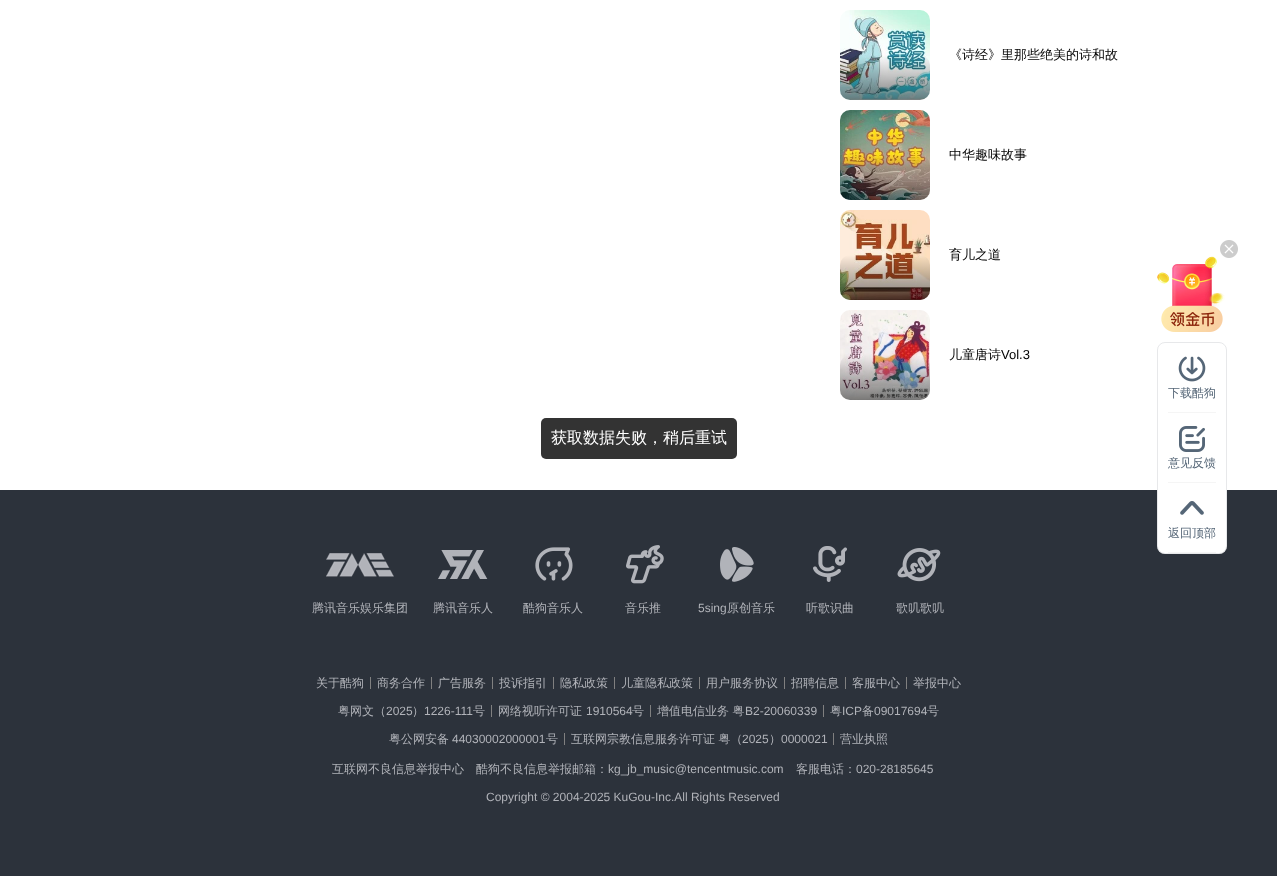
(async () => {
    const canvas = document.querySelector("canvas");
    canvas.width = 1277;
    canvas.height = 876;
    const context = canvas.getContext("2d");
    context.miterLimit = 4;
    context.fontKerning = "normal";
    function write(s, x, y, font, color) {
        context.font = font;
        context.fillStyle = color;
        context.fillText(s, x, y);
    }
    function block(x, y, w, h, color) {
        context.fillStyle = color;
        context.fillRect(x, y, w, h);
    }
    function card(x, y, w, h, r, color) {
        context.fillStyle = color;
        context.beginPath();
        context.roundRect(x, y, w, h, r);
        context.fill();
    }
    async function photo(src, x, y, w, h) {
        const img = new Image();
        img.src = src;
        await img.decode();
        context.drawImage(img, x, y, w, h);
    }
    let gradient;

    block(0, 0, 1277, 876, "rgb(255, 255, 255)");
    await photo("media/1.png", 840, 10, 90, 90);
    gradient = context.createLinearGradient(885, 55, 885, 100);
    gradient.addColorStop(0, "rgba(0, 0, 0, 0)");
    gradient.addColorStop(1, "rgba(0, 0, 0, 0.5)");
    context.fillStyle = gradient;
    context.beginPath();
    context.roundRect(840, 55, 90, 45, 10);
    context.fill();
    write("《诗经》里那些绝美的诗和故", 949, 59, "500 13px WenQuanYi Zen Hei", "rgb(0, 0, 0)");
    await photo("media/2.png", 840, 110, 90, 90);
    gradient = context.createLinearGradient(885, 155, 885, 200);
    gradient.addColorStop(0, "rgba(0, 0, 0, 0)");
    gradient.addColorStop(1, "rgba(0, 0, 0, 0.5)");
    context.fillStyle = gradient;
    context.beginPath();
    context.roundRect(840, 155, 90, 45, 10);
    context.fill();
    write("中华趣味故事", 949, 159, "500 13px WenQuanYi Zen Hei", "rgb(0, 0, 0)");
    await photo("media/3.png", 840, 210, 90, 90);
    gradient = context.createLinearGradient(885, 255, 885, 300);
    gradient.addColorStop(0, "rgba(0, 0, 0, 0)");
    gradient.addColorStop(1, "rgba(0, 0, 0, 0.5)");
    context.fillStyle = gradient;
    context.beginPath();
    context.roundRect(840, 255, 90, 45, 10);
    context.fill();
    write("育儿之道", 949, 259, "500 13px WenQuanYi Zen Hei", "rgb(0, 0, 0)");
    await photo("media/4.png", 840, 310, 90, 90);
    gradient = context.createLinearGradient(885, 355, 885, 400);
    gradient.addColorStop(0, "rgba(0, 0, 0, 0)");
    gradient.addColorStop(1, "rgba(0, 0, 0, 0.5)");
    context.fillStyle = gradient;
    context.beginPath();
    context.roundRect(840, 355, 90, 45, 10);
    context.fill();
    write("儿童唐诗", 949, 359, "500 13px WenQuanYi Zen Hei", "rgb(0, 0, 0)");
    write("Vol.3", 1001, 359, "13px Liberation Sans", "rgb(0, 0, 0)");
    block(0, 490, 1277, 386, "rgb(44, 50, 59)");
    await photo("media/5.png", 326, 553, 68, 24);
    write("腾讯音乐娱乐集团", 312, 612, "500 12px WenQuanYi Zen Hei", "rgb(177, 179, 185)");
    await photo("media/6.png", 438, 550, 50, 29);
    write("腾讯音乐人", 433, 612, "500 12px WenQuanYi Zen Hei", "rgb(177, 179, 185)");
    await photo("media/7.png", 535, 547, 38, 34);
    write("酷狗音乐人", 523, 612, "500 12px WenQuanYi Zen Hei", "rgb(177, 179, 185)");
    await photo("media/8.png", 626, 545, 38, 39);
    write("音乐推", 625, 612, "500 12px WenQuanYi Zen Hei", "rgb(177, 179, 185)");
    await photo("media/9.png", 720, 547, 34, 35);
    write("5sing", 698, 612, "12px Liberation Sans", "rgb(177, 179, 185)");
    write("原创音乐", 727, 612, "500 12px WenQuanYi Zen Hei", "rgb(177, 179, 185)");
    await photo("media/10.png", 813, 546, 34, 36);
    write("听歌识曲", 806, 612, "500 12px WenQuanYi Zen Hei", "rgb(177, 179, 185)");
    await photo("media/11.png", 897, 548, 44, 34);
    write("歌叽歌叽", 896, 612, "500 12px WenQuanYi Zen Hei", "rgb(177, 179, 185)");
    write("关于酷狗", 316, 687, "500 12px WenQuanYi Zen Hei", "rgb(177, 179, 185)");
    block(370, 677, 1, 12, "rgb(128, 128, 128)");
    write("商务合作", 377, 687, "500 12px WenQuanYi Zen Hei", "rgb(177, 179, 185)");
    block(431, 677, 1, 12, "rgb(128, 128, 128)");
    write("广告服务", 438, 687, "500 12px WenQuanYi Zen Hei", "rgb(177, 179, 185)");
    block(492, 677, 1, 12, "rgb(128, 128, 128)");
    write("投诉指引", 499, 687, "500 12px WenQuanYi Zen Hei", "rgb(177, 179, 185)");
    block(553, 677, 1, 12, "rgb(128, 128, 128)");
    write("隐私政策", 560, 687, "500 12px WenQuanYi Zen Hei", "rgb(177, 179, 185)");
    block(614, 677, 1, 12, "rgb(128, 128, 128)");
    write("儿童隐私政策", 621, 687, "500 12px WenQuanYi Zen Hei", "rgb(177, 179, 185)");
    block(699, 677, 1, 12, "rgb(128, 128, 128)");
    write("用户服务协议", 706, 687, "500 12px WenQuanYi Zen Hei", "rgb(177, 179, 185)");
    block(784, 677, 1, 12, "rgb(128, 128, 128)");
    write("招聘信息", 791, 687, "500 12px WenQuanYi Zen Hei", "rgb(177, 179, 185)");
    block(845, 677, 1, 12, "rgb(128, 128, 128)");
    write("客服中心", 852, 687, "500 12px WenQuanYi Zen Hei", "rgb(177, 179, 185)");
    block(906, 677, 1, 12, "rgb(128, 128, 128)");
    write("举报中心", 913, 687, "500 12px WenQuanYi Zen Hei", "rgb(177, 179, 185)");
    write("粤网文（", 338, 715, "500 12px WenQuanYi Zen Hei", "rgb(177, 179, 185)");
    write("2025", 386, 715, "12px Liberation Sans", "rgb(177, 179, 185)");
    write("）", 412, 715, "500 12px WenQuanYi Zen Hei", "rgb(177, 179, 185)");
    write("1226-111", 424, 715, "12px Liberation Sans", "rgb(177, 179, 185)");
    write("号", 473, 715, "500 12px WenQuanYi Zen Hei", "rgb(177, 179, 185)");
    block(491, 705, 1, 12, "rgb(128, 128, 128)");
    write("网络视听许可证", 498, 715, "500 12px WenQuanYi Zen Hei", "rgb(177, 179, 185)");
    write("1910564", 586, 715, "12px Liberation Sans", "rgb(177, 179, 185)");
    write("号", 632, 715, "500 12px WenQuanYi Zen Hei", "rgb(177, 179, 185)");
    block(650, 705, 1, 12, "rgb(128, 128, 128)");
    write("增值电信业务 粤", 657, 715, "500 12px WenQuanYi Zen Hei", "rgb(177, 179, 185)");
    write("B2-20060339", 745, 715, "12px Liberation Sans", "rgb(177, 179, 185)");
    block(823, 705, 1, 12, "rgb(128, 128, 128)");
    write("粤", 830, 715, "500 12px WenQuanYi Zen Hei", "rgb(177, 179, 185)");
    write("ICP", 842, 715, "12px Liberation Sans", "rgb(177, 179, 185)");
    write("备", 862, 715, "500 12px WenQuanYi Zen Hei", "rgb(177, 179, 185)");
    write("09017694", 874, 715, "12px Liberation Sans", "rgb(177, 179, 185)");
    write("号", 927, 715, "500 12px WenQuanYi Zen Hei", "rgb(177, 179, 185)");
    write("粤公网安备", 389, 743, "500 12px WenQuanYi Zen Hei", "rgb(177, 179, 185)");
    write("44030002000001", 452, 743, "12px Liberation Sans", "rgb(177, 179, 185)");
    write("号", 546, 743, "500 12px WenQuanYi Zen Hei", "rgb(177, 179, 185)");
    block(564, 733, 1, 12, "rgb(128, 128, 128)");
    write("互联网宗教信息服务许可证 粤（", 571, 743, "500 12px WenQuanYi Zen Hei", "rgb(177, 179, 185)");
    write("2025", 742, 743, "12px Liberation Sans", "rgb(177, 179, 185)");
    write("）", 769, 743, "500 12px WenQuanYi Zen Hei", "rgb(177, 179, 185)");
    write("0000021", 781, 743, "12px Liberation Sans", "rgb(177, 179, 185)");
    block(833, 733, 1, 12, "rgb(128, 128, 128)");
    write("营业执照", 840, 743, "500 12px WenQuanYi Zen Hei", "rgb(177, 179, 185)");
    write("互联网不良信息举报中心", 332, 773, "500 12px WenQuanYi Zen Hei", "rgb(177, 179, 185)");
    write("酷狗不良信息举报邮箱：", 476, 773, "500 12px WenQuanYi Zen Hei", "rgb(177, 179, 185)");
    write("kg_jb_music@tencentmusic.com", 608, 773, "12px Liberation Sans", "rgb(177, 179, 185)");
    write("客服电话：", 796, 773, "500 12px WenQuanYi Zen Hei", "rgb(177, 179, 185)");
    write("020-28185645", 856, 773, "12px Liberation Sans", "rgb(177, 179, 185)");
    write("Copyright © 2004-2025 KuGou-Inc.All Rights Reserved", 486, 801, "12px Liberation Sans", "rgb(177, 179, 185)");
    await photo("media/13.png", 1157, 256, 68, 52);
    await photo("media/12.png", 1220, 240, 18, 18);
    await photo("media/14.png", 1161, 305, 62, 27);
    card(541, 418, 196, 41, 5, "rgb(51, 51, 51)");
    write("获取数据失败，稍后重试", 551, 443, "500 16px WenQuanYi Zen Hei", "rgb(255, 255, 255)");
    card(1157, 342, 70, 212, 8, "rgb(255, 255, 255)");
    context.beginPath();
    context.roundRect(1157.5, 342.5, 69, 211, 7.5);
    context.strokeStyle = "rgba(177, 179, 185, 0.3)";
    context.stroke();
    block(1168, 412, 48, 1, "rgb(245, 245, 245)");
    await photo("media/15.png", 1178, 356, 28, 26);
    write("下载酷狗", 1168, 397, "500 12px WenQuanYi Zen Hei", "rgb(85, 102, 119)");
    block(1168, 482, 48, 1, "rgb(245, 245, 245)");
    await photo("media/16.png", 1179, 426, 26, 26);
    write("意见反馈", 1168, 467, "500 12px WenQuanYi Zen Hei", "rgb(85, 102, 119)");
    block(1168, 552, 48, 1, "rgb(245, 245, 245)");
    await photo("media/17.png", 1180, 501, 24, 14);
    write("返回顶部", 1168, 537, "500 12px WenQuanYi Zen Hei", "rgb(85, 102, 119)");
})();
